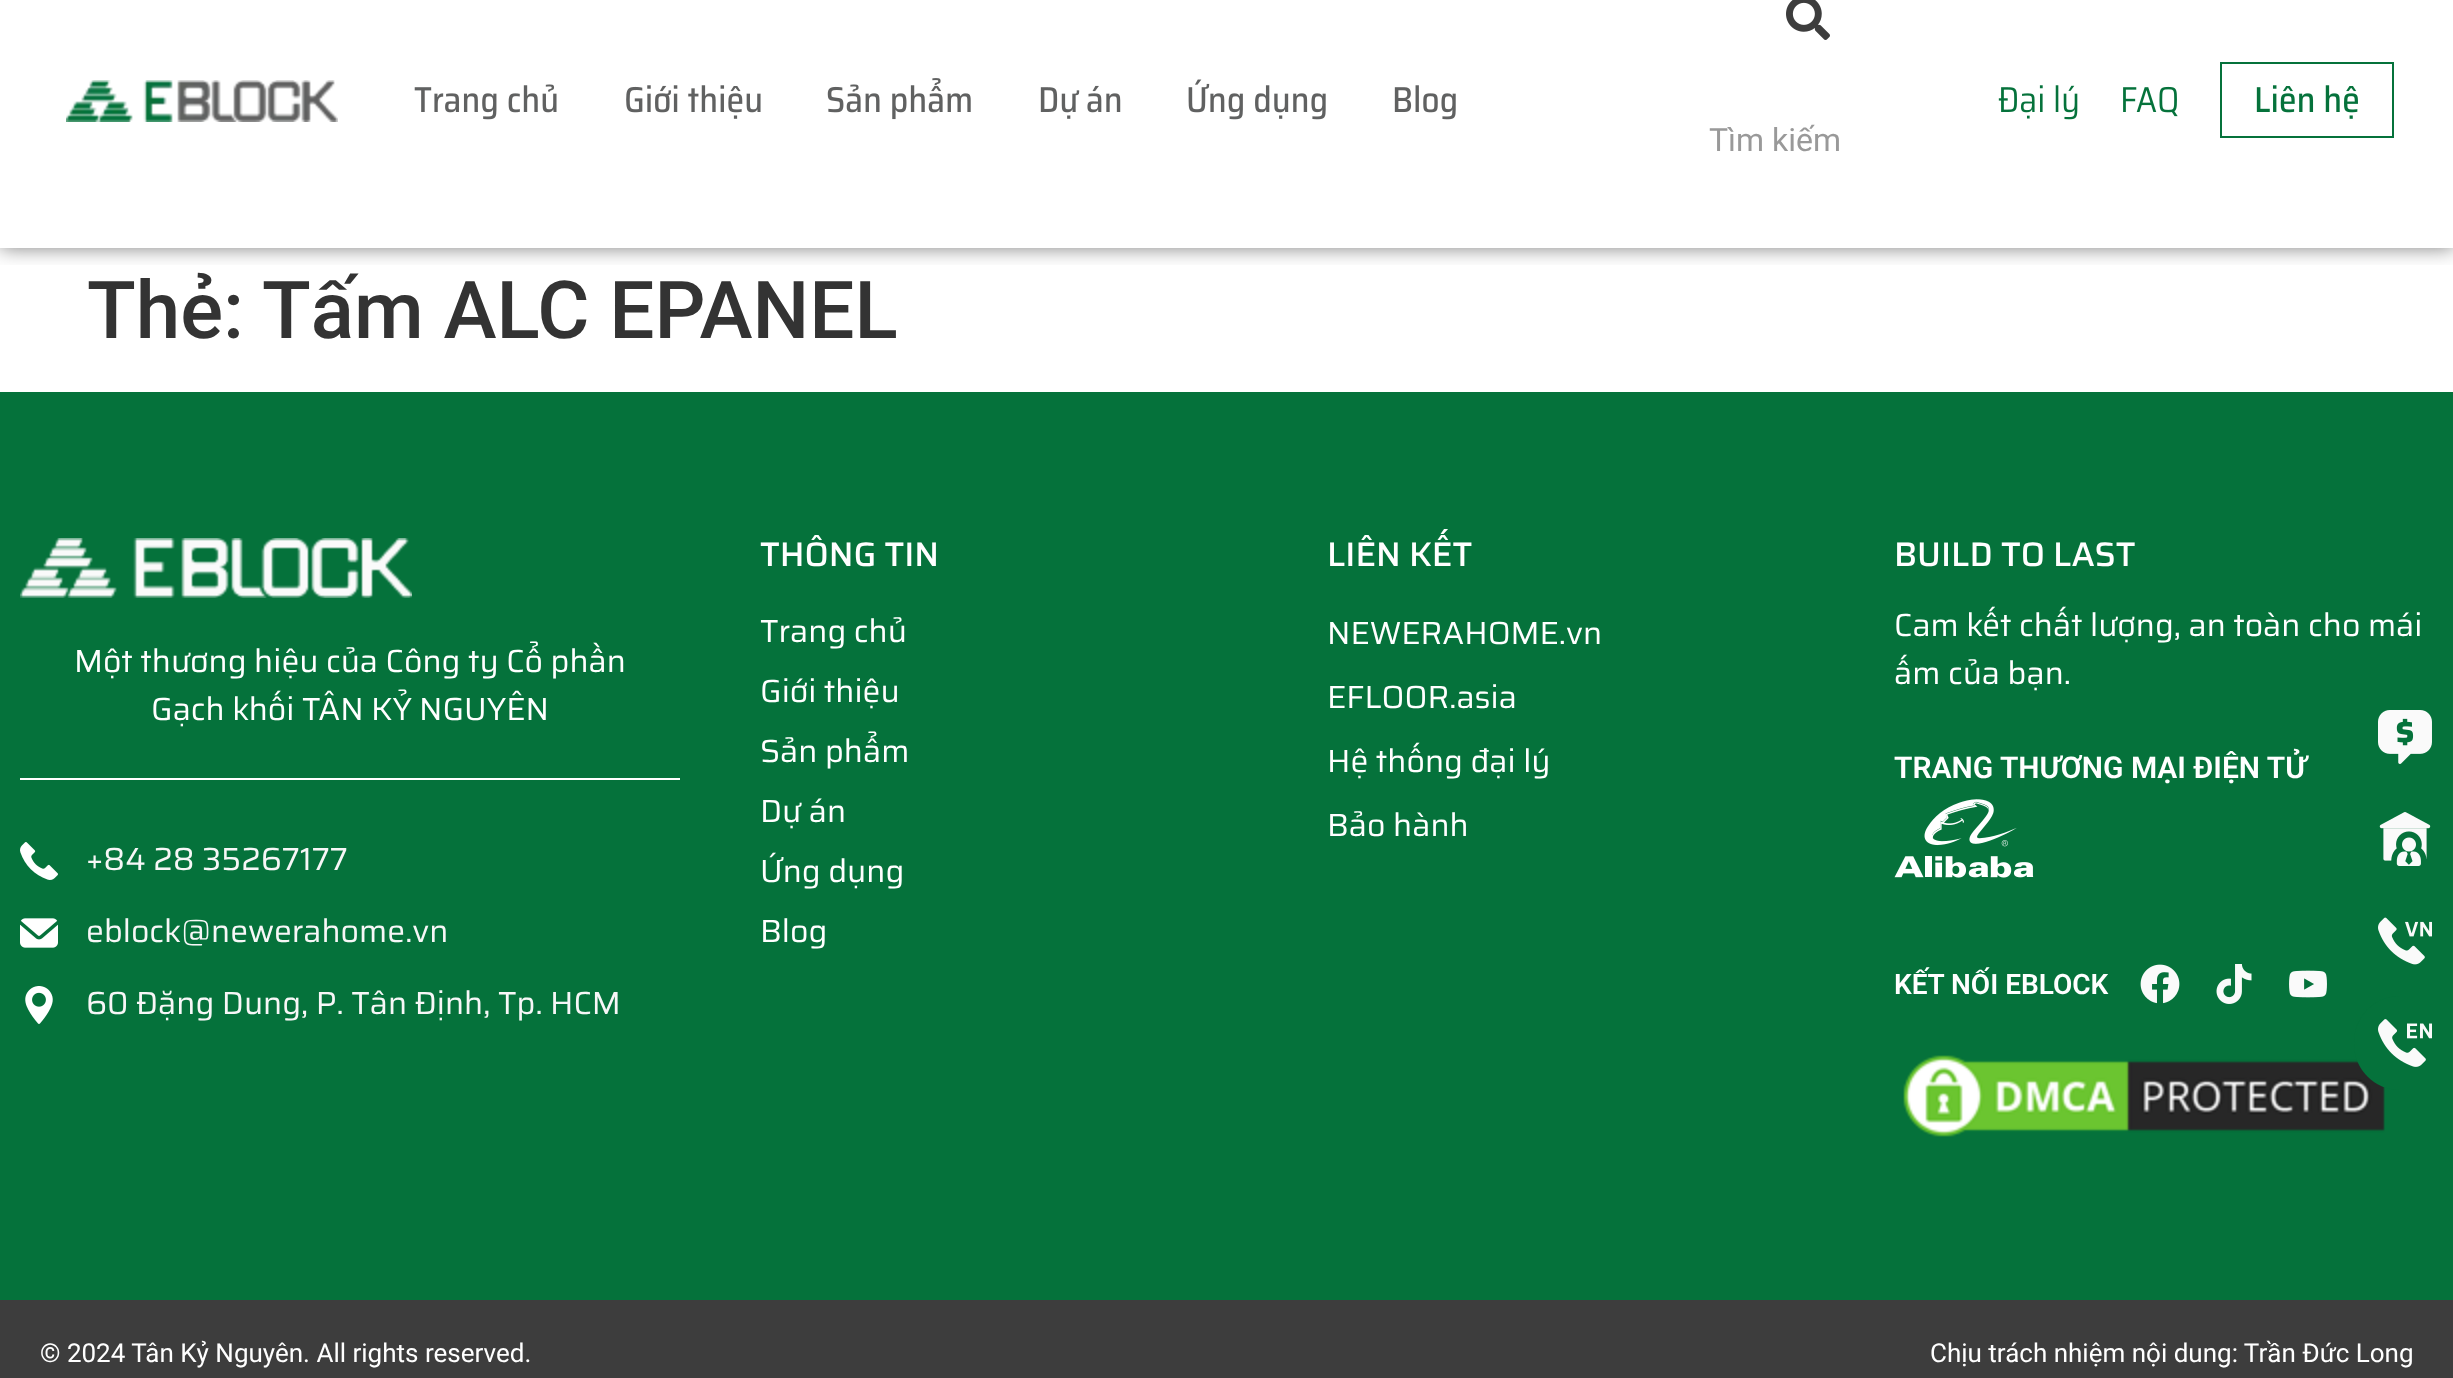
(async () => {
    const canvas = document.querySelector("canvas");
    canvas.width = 2453;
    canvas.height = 1378;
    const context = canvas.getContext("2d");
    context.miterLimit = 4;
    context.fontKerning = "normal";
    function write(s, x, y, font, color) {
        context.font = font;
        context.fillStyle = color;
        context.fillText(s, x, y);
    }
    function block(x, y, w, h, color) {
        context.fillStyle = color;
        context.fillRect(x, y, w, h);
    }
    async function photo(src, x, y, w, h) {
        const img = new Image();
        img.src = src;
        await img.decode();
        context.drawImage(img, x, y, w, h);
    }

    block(0, 0, 2453, 1378, "rgb(255, 255, 255)");
    context.save();
    context.beginPath();
    context.rect(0, 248, 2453, 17);
    context.clip();
    context.fillStyle = "rgba(0, 0, 0, 0.5)";
    context.filter = "blur(10px)";
    context.beginPath();
    context.rect(0, -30, 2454, 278);
    context.fill();
    context.filter = "none";
    context.restore();
    await photo("media/1.png", 66, 80, 272, 42);
    await photo("media/2.png", 414, 84, 143, 36);
    await photo("media/3.png", 626, 85, 135, 34);
    await photo("media/4.png", 827, 78, 144, 42);
    await photo("media/5.png", 1040, 85, 81, 34);
    await photo("media/6.png", 1188, 79, 138, 41);
    await photo("media/7.png", 1394, 85, 62, 35);
    await photo("media/8.png", 1998, 85, 80, 35);
    await photo("media/9.png", 2123, 86, 55, 31);
    context.strokeStyle = "rgb(5, 114, 59)";
    context.lineWidth = 2;
    context.strokeRect(2221, 63, 172, 74);
    await photo("media/10.png", 2256, 85, 102, 34);
    await photo("media/11.png", 1786, 0, 44, 40);
    write("Tìm kiếm", 1709, 151, "32px Roboto", "rgb(153, 153, 153)");
    write("Thẻ:", 87, 338, "500 80px Roboto", "rgb(51, 51, 51)");
    write("Tấm ALC EPANEL", 262, 338, "500 80px Roboto", "rgb(51, 51, 51)");
    block(0, 392, 2453, 908, "rgb(5, 114, 59)");
    await photo("media/12.png", 20, 538, 392, 60);
    write("Một thương hiệu của Công ty Cổ phần", 74, 672, "32px Saira", "rgb(255, 255, 255)");
    write("Gạch khối TÂN KỶ NGUYÊN", 151, 720, "32px Saira", "rgb(255, 255, 255)");
    block(20, 778, 660, 2, "rgb(255, 255, 255)");
    await photo("media/13.png", 20, 842, 38, 38);
    write("+84 28 35267177", 86, 870, "32px Saira", "rgb(247, 247, 247)");
    await photo("media/14.png", 20, 918, 38, 30);
    write("eblock@newerahome.vn", 86, 942, "32px Saira", "rgb(247, 247, 247)");
    await photo("media/15.png", 25, 986, 28, 38);
    write("60 Đặng Dung, P. Tân Định, Tp. HCM", 86, 1014, "32px Saira", "rgb(247, 247, 247)");
    write("THÔNG TIN", 760, 566, "500 34px Saira", "rgb(255, 255, 255)");
    write("Trang chủ", 760, 642, "32px Saira", "rgb(255, 255, 255)");
    write("Giới thiệu", 760, 702, "32px Saira", "rgb(255, 255, 255)");
    write("Sản phẩm", 760, 762, "32px Saira", "rgb(255, 255, 255)");
    write("Dự án", 760, 822, "32px Saira", "rgb(255, 255, 255)");
    write("Ứng dụng", 760, 882, "32px Saira", "rgb(255, 255, 255)");
    write("Blog", 760, 942, "32px Saira", "rgb(255, 255, 255)");
    write("LIÊN KẾT", 1327, 566, "500 34px Saira", "rgb(255, 255, 255)");
    write("NEWERAHOME.vn", 1327, 644, "32px Saira", "rgb(255, 255, 255)");
    write("EFLOOR.asia", 1327, 708, "32px Saira", "rgb(255, 255, 255)");
    write("Hệ thống đại lý", 1327, 772, "32px Saira", "rgb(255, 255, 255)");
    write("Bảo hành", 1327, 836, "32px Saira", "rgb(255, 255, 255)");
    write("BUILD TO LAST", 1894, 566, "500 34px Saira", "rgb(255, 255, 255)");
    write("Cam kết chất lượng, an toàn cho mái", 1894, 636, "32px Saira", "rgb(255, 255, 255)");
    write("ấm của bạn.", 1894, 684, "32px Saira", "rgb(255, 255, 255)");
    write("TRANG THƯƠNG MẠI ĐIỆN TỬ", 1894, 778, "600 30px Roboto", "rgb(255, 255, 255)");
    await photo("media/16.png", 1894, 799, 140, 79);
    write("KẾT NỐI EBLOCK", 1894, 994, "600 28px Roboto", "rgb(255, 255, 255)");
    await photo("media/17.png", 2140, 964, 40, 40);
    await photo("media/18.png", 2216, 964, 36, 40);
    await photo("media/19.png", 2289, 970, 38, 28);
    await photo("media/20.png", 1903, 1055, 482, 82);
    await photo("media/21.png", 2378, 710, 54, 54);
    await photo("media/22.png", 2379, 812, 52, 54);
    await photo("media/23.png", 2378, 917, 54, 48);
    context.fillStyle = "rgb(5, 114, 59)";
    context.beginPath();
    context.moveTo(2400, 996);
    context.lineTo(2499, 996);
    context.lineTo(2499, 1090);
    context.lineTo(2400, 1090);
    context.bezierCurveTo(2374.5, 1090, 2354, 1069.5, 2354, 1044);
    context.lineTo(2354, 1042);
    context.bezierCurveTo(2354, 1016.5, 2374.5, 996, 2400, 996);
    context.closePath();
    context.fill();
    await photo("media/24.png", 2378, 1019, 54, 48);
    block(0, 1300, 2453, 78, "rgb(61, 61, 61)");
    write("© 2024 Tân Kỷ Nguyên. All rights reserved.", 40, 1362, "26px Roboto", "rgb(255, 255, 255)");
    write("Chịu trách nhiệm nội dung: Trần Đức Long", 1930, 1362, "26px Roboto", "rgb(255, 255, 255)");
})();
